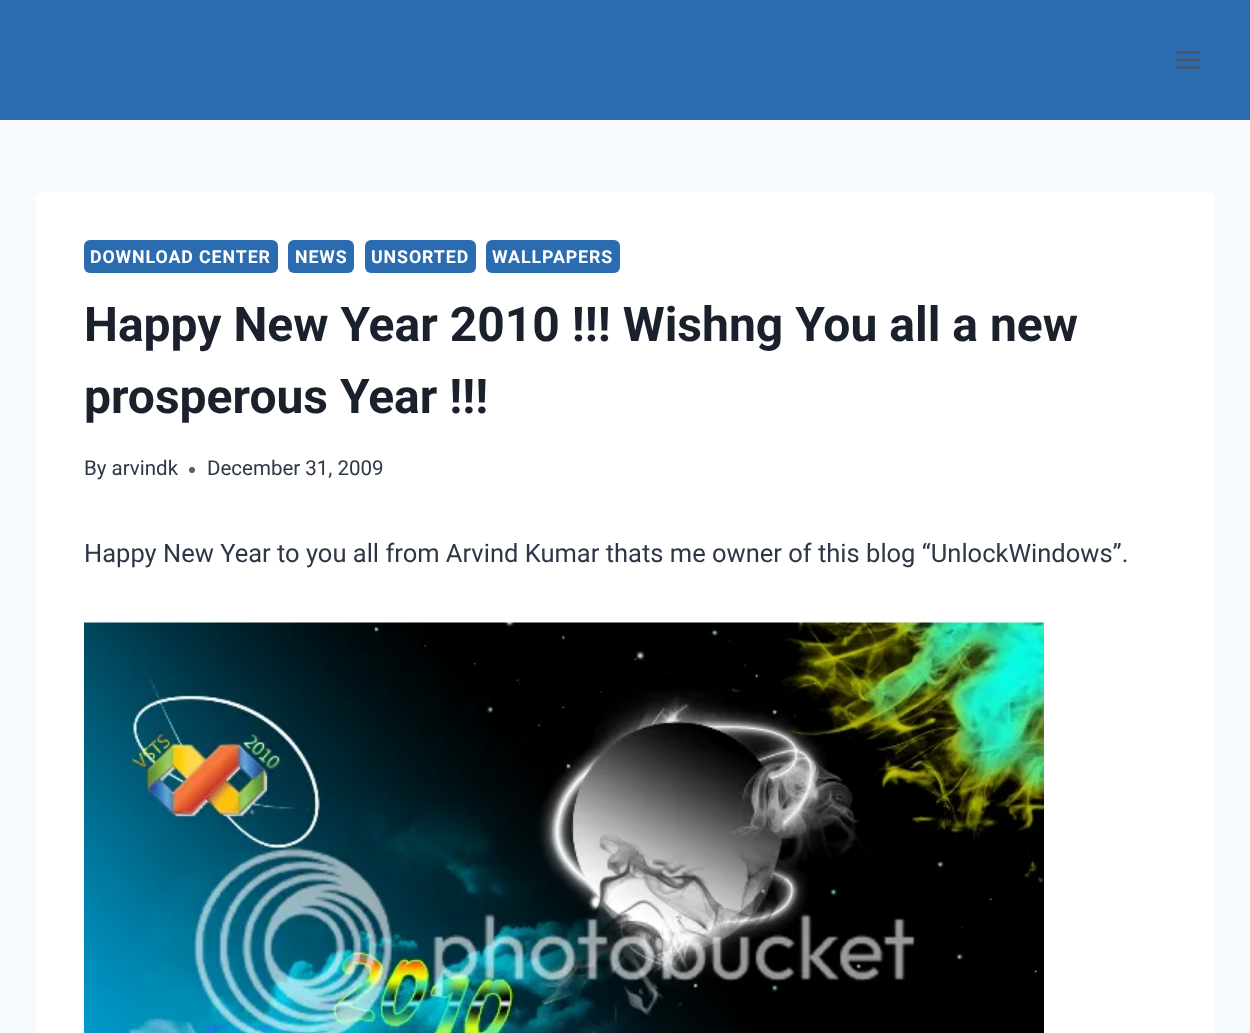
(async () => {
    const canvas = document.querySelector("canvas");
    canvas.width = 1250;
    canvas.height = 1033;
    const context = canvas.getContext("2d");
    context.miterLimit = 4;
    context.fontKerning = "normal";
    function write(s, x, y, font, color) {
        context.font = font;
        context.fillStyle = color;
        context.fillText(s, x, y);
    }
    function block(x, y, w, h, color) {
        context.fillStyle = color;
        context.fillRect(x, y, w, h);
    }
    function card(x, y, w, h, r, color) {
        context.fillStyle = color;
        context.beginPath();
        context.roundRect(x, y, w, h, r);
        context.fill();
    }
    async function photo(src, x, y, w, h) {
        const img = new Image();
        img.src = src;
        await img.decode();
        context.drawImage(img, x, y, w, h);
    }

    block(0, 0, 1250, 1033, "rgb(247, 250, 252)");
    block(0, 0, 1250, 120, "rgb(43, 108, 176)");
    await photo("media/1.png", 1175, 51, 26, 18);
    card(36, 192, 1179, 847, 6, "rgb(255, 255, 255)");
    card(84, 240, 194, 33, 6, "rgb(43, 108, 176)");
    context.letterSpacing = "0.9px";
    write("DOWNLOAD CENTER", 90, 263, "bold 17.8px Roboto", "rgb(255, 255, 255)");
    card(288, 240, 66, 33, 6, "rgb(43, 108, 176)");
    write("NEWS", 295, 263, "bold 17.8px Roboto", "rgb(255, 255, 255)");
    card(365, 240, 111, 33, 6, "rgb(43, 108, 176)");
    write("UNSORTED", 371, 263, "bold 17.8px Roboto", "rgb(255, 255, 255)");
    card(486, 240, 134, 33, 6, "rgb(43, 108, 176)");
    write("WALLPAPERS", 492, 263, "bold 17.8px Roboto", "rgb(255, 255, 255)");
    context.letterSpacing = "0px";
    write("Happy New Year 2010 !!! Wishng You all a new", 84, 341, "bold 48px Roboto", "rgb(26, 32, 44)");
    write("prosperous Year !!!", 84, 413, "bold 48px Roboto", "rgb(26, 32, 44)");
    write("By arvindk", 84, 475, "20.5px Roboto", "rgb(45, 55, 72)");
    context.fillStyle = "rgb(87, 95, 109)";
    context.beginPath();
    context.arc(192, 470, 3, 0, Math.PI * 2);
    context.fill();
    write("December 31, 2009", 207, 475, "20.5px Roboto", "rgb(45, 55, 72)");
    write("Happy New Year to you all from Arvind Kumar thats me owner of this blog “UnlockWindows”.", 84, 562, "25.5px Roboto", "rgb(45, 55, 72)");
    await photo("media/2.png", 84, 622, 960, 411);
})();
